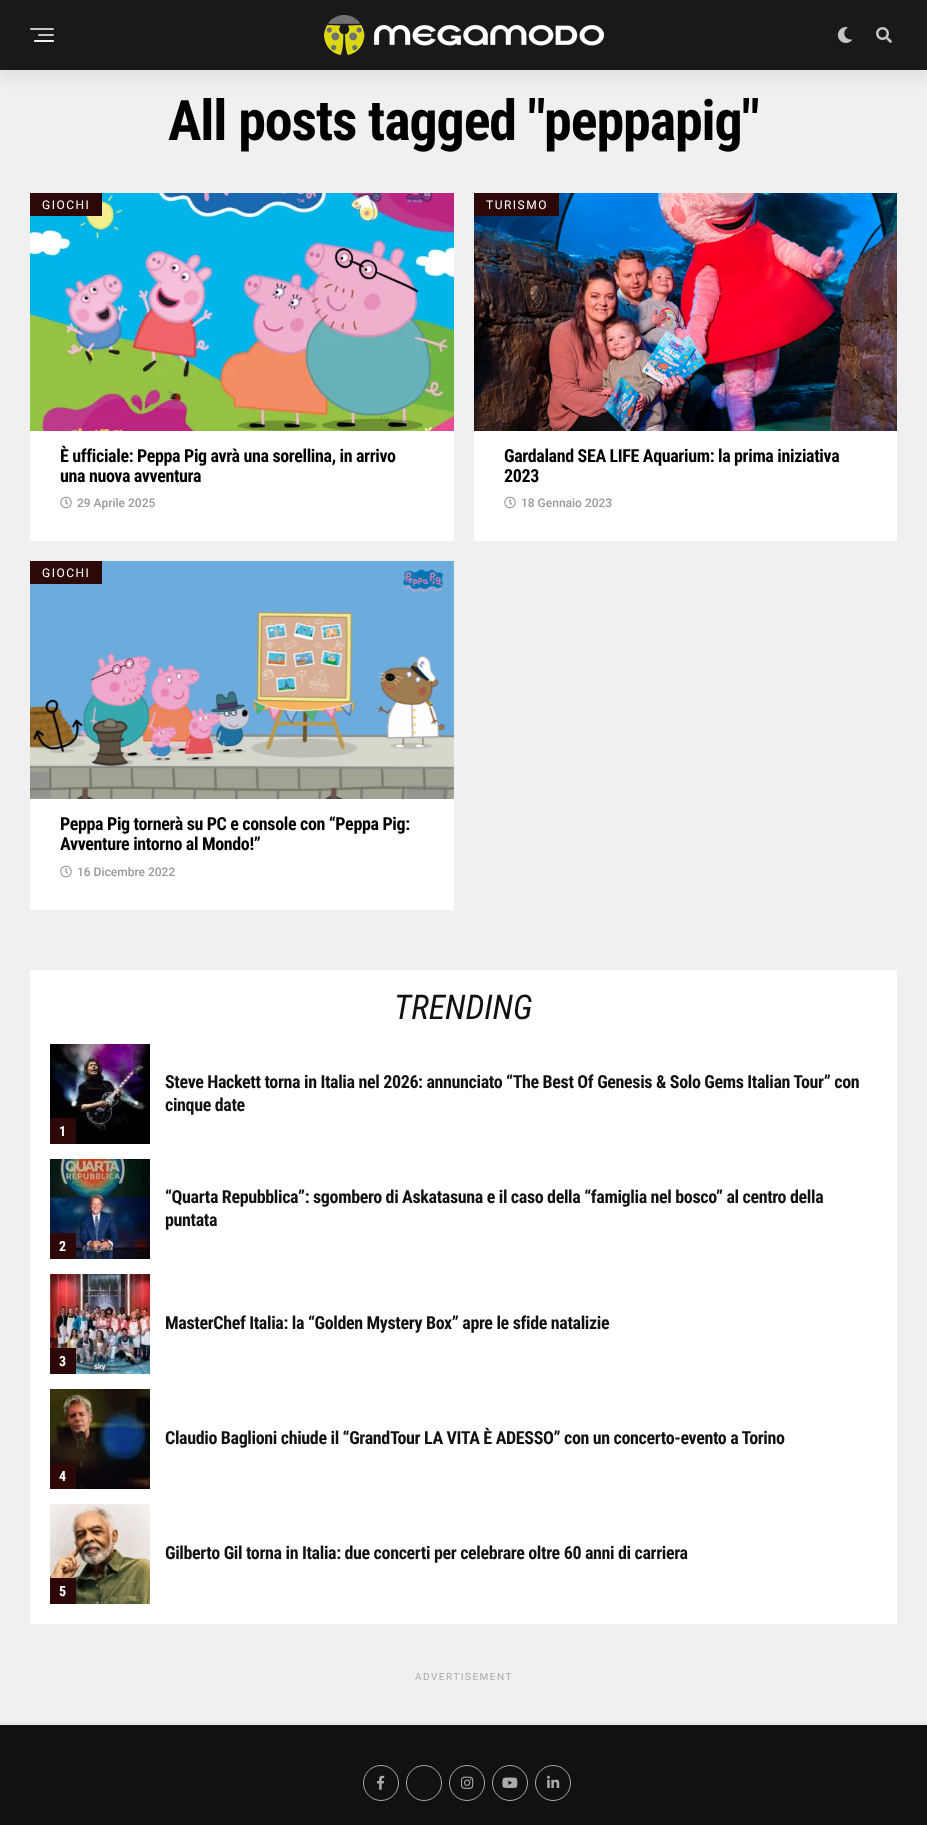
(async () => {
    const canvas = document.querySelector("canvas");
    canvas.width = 927;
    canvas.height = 1825;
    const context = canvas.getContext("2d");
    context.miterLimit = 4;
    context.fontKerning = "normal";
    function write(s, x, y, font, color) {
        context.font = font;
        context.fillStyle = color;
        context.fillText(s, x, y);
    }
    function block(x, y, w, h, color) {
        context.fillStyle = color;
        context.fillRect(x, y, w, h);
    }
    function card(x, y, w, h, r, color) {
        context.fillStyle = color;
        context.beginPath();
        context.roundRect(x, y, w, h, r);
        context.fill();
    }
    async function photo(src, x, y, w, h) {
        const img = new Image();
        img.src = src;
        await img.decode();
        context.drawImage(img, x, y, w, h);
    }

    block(0, 0, 927, 1825, "rgb(240, 240, 240)");
    context.fillStyle = "rgba(21, 21, 30, 0.08)";
    context.filter = "blur(8px)";
    context.beginPath();
    context.rect(0, 8, 927, 70);
    context.fill();
    context.filter = "none";
    block(0, 0, 927, 70, "rgb(25, 25, 25)");
    card(30, 28, 24, 2, 1, "rgb(198, 198, 198)");
    card(38, 34, 16, 2, 1, "rgb(198, 198, 198)");
    card(34, 40, 20, 2, 1, "rgb(198, 198, 198)");
    card(34, 40, 20, 2, 1, "rgba(255, 255, 255, 0.75)");
    await photo("media/1.png", 324, 15, 280, 40);
    await photo("media/2.png", 837, 27, 16, 16);
    await photo("media/3.png", 876, 27, 16, 16);
    context.letterSpacing = "-1.1px";
    write("All posts tagged \"peppapig\"", 168, 140, "bold 56px Roboto Condensed", "rgb(0, 0, 0)");
    block(30, 431, 424, 110, "rgb(255, 255, 255)");
    await photo("media/4.png", 30, 193, 424, 238);
    block(30, 193, 72, 23, "rgb(45, 8, 8)");
    context.letterSpacing = "1.5px";
    write("GIOCHI", 42, 209, "12px Roboto", "rgb(255, 255, 255)");
    context.letterSpacing = "-0.36px";
    write("È ufficiale: Peppa Pig avrà una sorellina, in arrivo", 60, 462, "bold 18px Roboto Condensed", "rgb(0, 0, 0)");
    write("una nuova avventura", 60, 482, "bold 18px Roboto Condensed", "rgb(0, 0, 0)");
    await photo("media/5.png", 60, 496, 12, 13);
    context.letterSpacing = "0px";
    write("29 Aprile 2025", 77, 507, "500 12px Roboto", "rgb(153, 153, 153)");
    block(474, 431, 423, 110, "rgb(255, 255, 255)");
    await photo("media/6.png", 474, 193, 423, 238);
    block(474, 193, 85, 23, "rgb(45, 8, 8)");
    context.letterSpacing = "1.5px";
    write("TURISMO", 486, 209, "12px Roboto", "rgb(255, 255, 255)");
    context.letterSpacing = "-0.36px";
    write("Gardaland SEA LIFE Aquarium: la prima iniziativa", 504, 462, "bold 18px Roboto Condensed", "rgb(0, 0, 0)");
    write("2023", 504, 482, "bold 18px Roboto Condensed", "rgb(0, 0, 0)");
    await photo("media/5.png", 504, 496, 12, 13);
    context.letterSpacing = "0px";
    write("18 Gennaio 2023", 521, 507, "500 12px Roboto", "rgb(153, 153, 153)");
    block(30, 561, 424, 349, "rgb(255, 255, 255)");
    await photo("media/7.png", 30, 561, 424, 238);
    block(30, 561, 72, 23, "rgb(45, 8, 8)");
    context.letterSpacing = "1.5px";
    write("GIOCHI", 42, 577, "12px Roboto", "rgb(255, 255, 255)");
    context.letterSpacing = "-0.36px";
    write("Peppa Pig tornerà su PC e console con “Peppa Pig:", 60, 830, "bold 18px Roboto Condensed", "rgb(0, 0, 0)");
    write("Avventure intorno al Mondo!”", 60, 850, "bold 18px Roboto Condensed", "rgb(0, 0, 0)");
    await photo("media/5.png", 60, 865, 12, 13);
    context.letterSpacing = "0px";
    write("16 Dicembre 2022", 77, 876, "500 12px Roboto", "rgb(153, 153, 153)");
    block(30, 970, 867, 654, "rgb(255, 255, 255)");
    write("TRENDING", 394, 1019, "italic 34px Roboto Condensed", "rgb(17, 17, 17)");
    await photo("media/8.png", 50, 1044, 100, 100);
    context.letterSpacing = "-0.36px";
    write("Steve Hackett torna in Italia nel 2026: annunciato “The Best Of Genesis & Solo Gems Italian Tour” con", 165, 1088, "bold 18px Roboto Condensed", "rgb(17, 17, 17)");
    write("cinque date", 165, 1111, "bold 18px Roboto Condensed", "rgb(17, 17, 17)");
    block(50, 1118, 26, 26, "rgb(45, 8, 8)");
    context.letterSpacing = "0px";
    write("1", 59, 1136, "bold 14px Roboto Condensed", "rgb(255, 255, 255)");
    await photo("media/9.png", 50, 1159, 100, 100);
    context.letterSpacing = "-0.36px";
    write("“Quarta Repubblica”: sgombero di Askatasuna e il caso della “famiglia nel bosco” al centro della", 165, 1203, "bold 18px Roboto Condensed", "rgb(17, 17, 17)");
    write("puntata", 165, 1226, "bold 18px Roboto Condensed", "rgb(17, 17, 17)");
    block(50, 1233, 26, 26, "rgb(45, 8, 8)");
    context.letterSpacing = "0px";
    write("2", 59, 1251, "bold 14px Roboto Condensed", "rgb(255, 255, 255)");
    await photo("media/10.png", 50, 1274, 100, 100);
    context.letterSpacing = "-0.36px";
    write("MasterChef Italia: la “Golden Mystery Box” apre le sfide natalizie", 165, 1329, "bold 18px Roboto Condensed", "rgb(17, 17, 17)");
    block(50, 1348, 26, 26, "rgb(45, 8, 8)");
    context.letterSpacing = "0px";
    write("3", 59, 1366, "bold 14px Roboto Condensed", "rgb(255, 255, 255)");
    await photo("media/11.png", 50, 1389, 100, 100);
    context.letterSpacing = "-0.36px";
    write("Claudio Baglioni chiude il “GrandTour LA VITA È ADESSO” con un concerto-evento a Torino", 165, 1444, "bold 18px Roboto Condensed", "rgb(17, 17, 17)");
    block(50, 1463, 26, 26, "rgb(45, 8, 8)");
    context.letterSpacing = "0px";
    write("4", 59, 1481, "bold 14px Roboto Condensed", "rgb(255, 255, 255)");
    await photo("media/12.png", 50, 1504, 100, 100);
    context.letterSpacing = "-0.36px";
    write("Gilberto Gil torna in Italia: due concerti per celebrare oltre 60 anni di carriera", 165, 1559, "bold 18px Roboto Condensed", "rgb(17, 17, 17)");
    block(50, 1578, 26, 26, "rgb(45, 8, 8)");
    context.letterSpacing = "0px";
    write("5", 59, 1596, "bold 14px Roboto Condensed", "rgb(255, 255, 255)");
    context.letterSpacing = "1.5px";
    write("ADVERTISEMENT", 415, 1680, "10px Roboto", "rgb(170, 170, 170)");
    block(0, 1725, 927, 100, "rgb(17, 17, 17)");
    block(0, 1722, 927, 3, "rgb(233, 233, 233)");
    context.beginPath();
    context.arc(381, 1783, 17.5, 0, Math.PI * 2);
    context.strokeStyle = "rgb(170, 170, 170)";
    context.stroke();
    await photo("media/13.png", 377, 1775, 8, 15);
    context.beginPath();
    context.arc(424, 1783, 17.5, 0, Math.PI * 2);
    context.stroke();
    context.beginPath();
    context.arc(467, 1783, 17.5, 0, Math.PI * 2);
    context.stroke();
    await photo("media/14.png", 461, 1776, 13, 13);
    context.beginPath();
    context.arc(510, 1783, 17.5, 0, Math.PI * 2);
    context.stroke();
    await photo("media/15.png", 502, 1777, 16, 11);
    context.beginPath();
    context.arc(553, 1783, 17.5, 0, Math.PI * 2);
    context.stroke();
    await photo("media/16.png", 547, 1775, 13, 13);
})();
